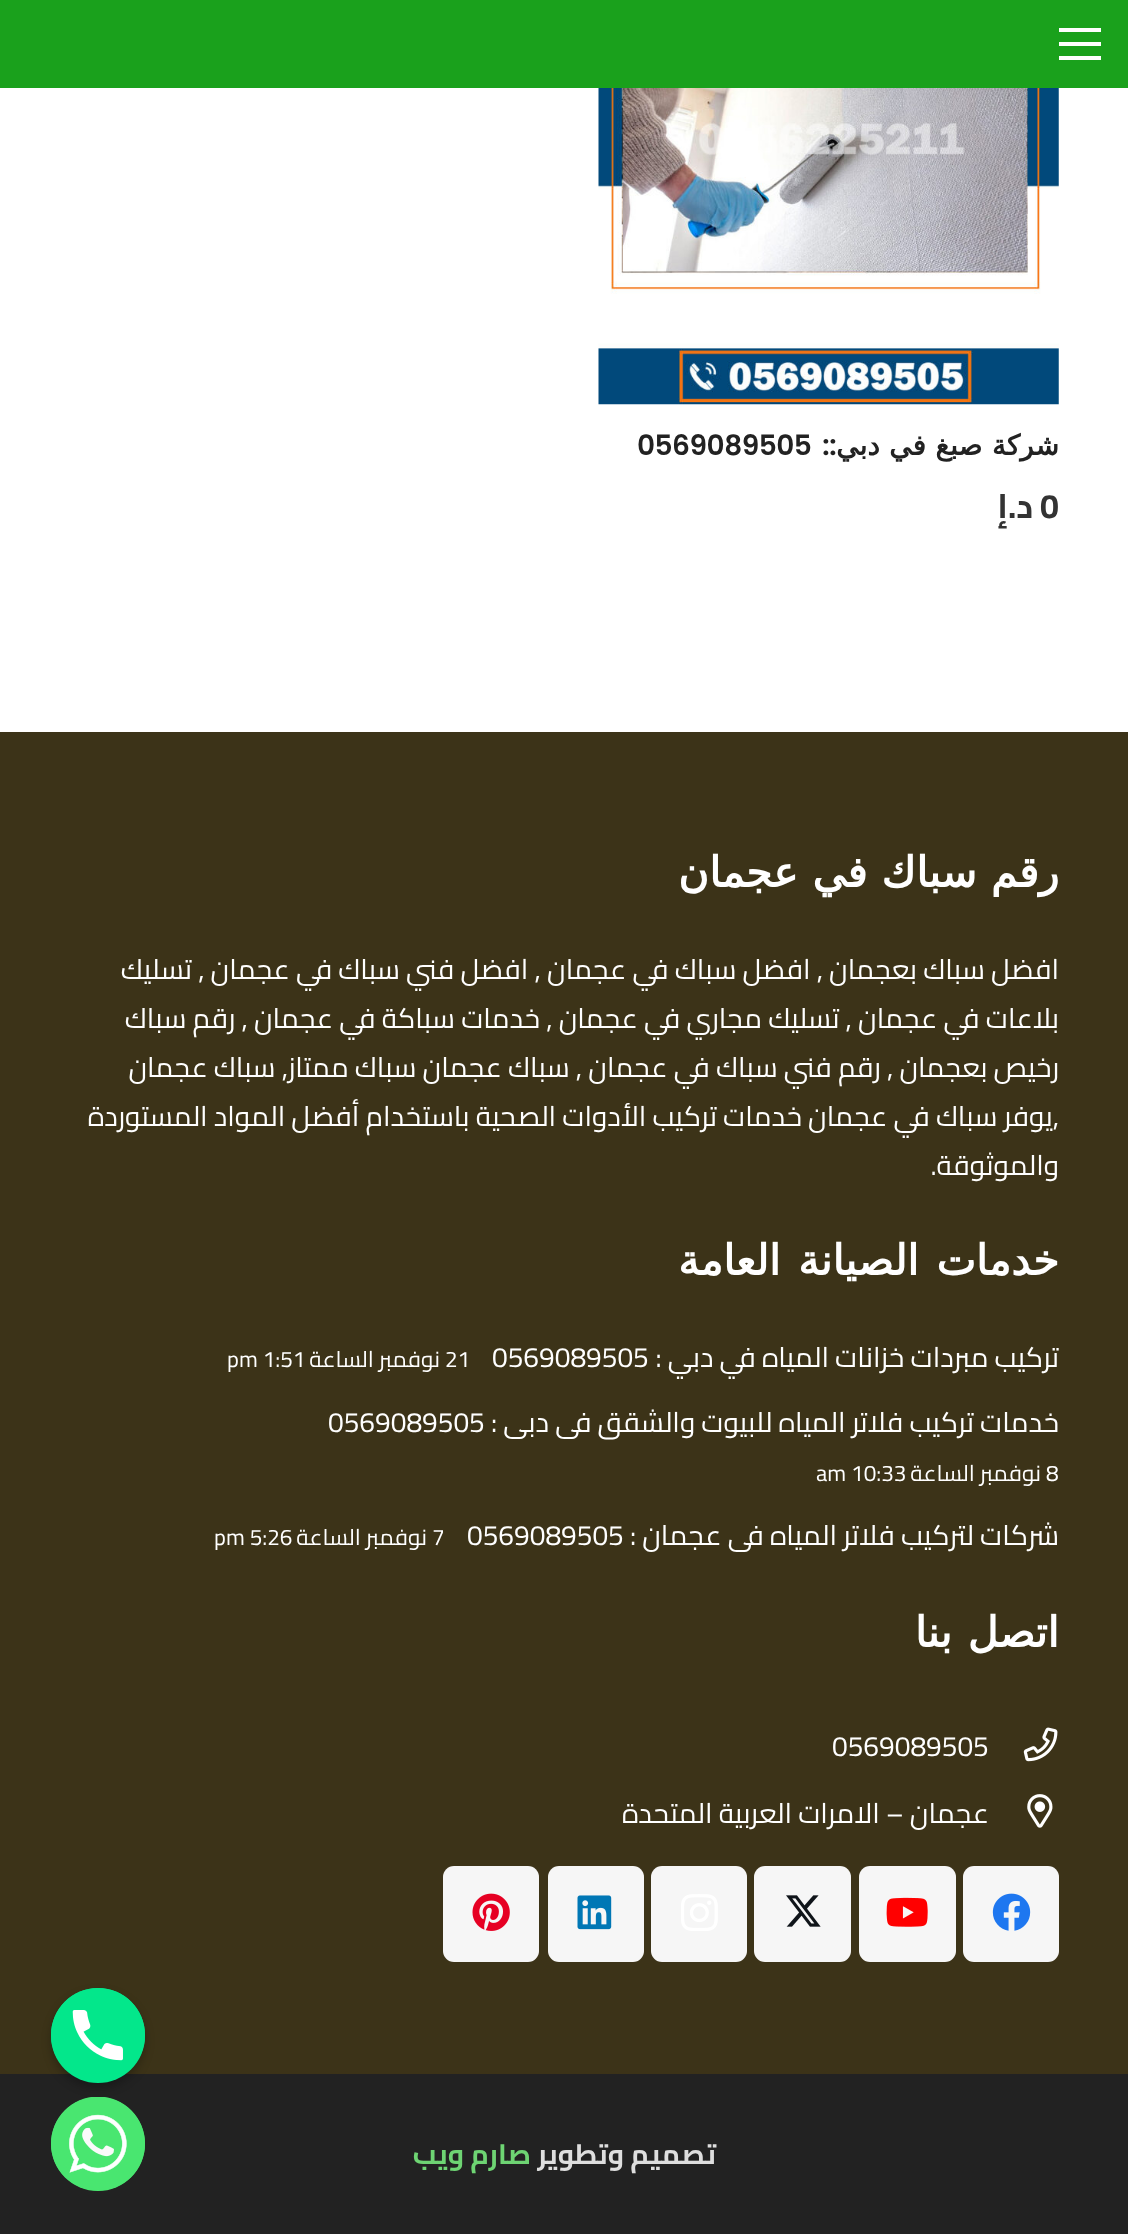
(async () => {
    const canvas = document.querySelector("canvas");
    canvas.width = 1128;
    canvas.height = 2234;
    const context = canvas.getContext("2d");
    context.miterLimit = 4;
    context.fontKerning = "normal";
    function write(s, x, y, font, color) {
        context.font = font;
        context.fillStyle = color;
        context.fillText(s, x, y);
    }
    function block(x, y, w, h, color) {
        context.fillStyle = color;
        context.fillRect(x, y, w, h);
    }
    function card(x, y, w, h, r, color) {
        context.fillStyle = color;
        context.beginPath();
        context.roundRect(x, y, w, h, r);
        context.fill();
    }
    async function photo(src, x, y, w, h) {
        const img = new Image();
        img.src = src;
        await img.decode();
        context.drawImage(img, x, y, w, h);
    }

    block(0, 0, 1128, 2234, "rgb(255, 255, 255)");
    block(0, 0, 1128, 88, "rgb(26, 161, 28)");
    block(1059, 42, 42, 4, "rgb(255, 255, 255)");
    block(1059, 28, 42, 4, "rgb(255, 255, 255)");
    block(1059, 56, 42, 4, "rgb(255, 255, 255)");
    await photo("media/1.png", 598, 88, 461, 317);
    context.letterSpacing = "-0.5px";
    context.wordSpacing = "1px";
    context.direction = "rtl";
    write("شركة صبغ في دبي", 1059, 455, "bold 28px DejaVu Sans", "rgb(34, 34, 34)");
    context.wordSpacing = "0px";
    write("::", 836, 455, "600 28px Poppins", "rgb(34, 34, 34)");
    context.direction = "ltr";
    write("0569089505", 637, 455, "600 28px Poppins", "rgb(34, 34, 34)");
    context.letterSpacing = "0px";
    write("0", 1040, 518, "bold 34px Cairo", "rgb(51, 51, 51)");
    context.direction = "rtl";
    write("د.إ", 1033, 518, "bold 34px Cairo", "rgb(51, 51, 51)");
    block(0, 732, 1128, 1342, "rgb(60, 51, 24)");
    context.letterSpacing = "-0.8px";
    context.wordSpacing = "1.5px";
    write("رقم سباك في عجمان", 1059, 887, "bold 42px DejaVu Sans", "rgb(255, 255, 255)");
    context.letterSpacing = "0px";
    context.wordSpacing = "0px";
    write("افضل سباك بعجمان , افضل سباك في عجمان , افضل فني سباك في عجمان , تسليك", 1059, 979, "28px Cairo", "rgb(255, 255, 255)");
    write("بلاعات في عجمان , تسليك مجاري في عجمان , خدمات سباكة في عجمان , رقم سباك", 1059, 1028, "28px Cairo", "rgb(255, 255, 255)");
    write("رخيص بعجمان , رقم فني سباك في عجمان , سباك عجمان سباك ممتاز, سباك عجمان", 1059, 1077, "28px Cairo", "rgb(255, 255, 255)");
    write(",يوفر سباك في عجمان خدمات تركيب الأدوات الصحية باستخدام أفضل المواد المستوردة", 1059, 1126, "28px Cairo", "rgb(255, 255, 255)");
    write("والموثوقة.", 1059, 1175, "28px Cairo", "rgb(255, 255, 255)");
    context.letterSpacing = "-0.8px";
    context.wordSpacing = "5px";
    write("خدمات الصيانة العامة", 1059, 1275, "bold 42px DejaVu Sans", "rgb(255, 255, 255)");
    context.letterSpacing = "0px";
    context.wordSpacing = "0px";
    write("تركيب مبردات خزانات المياه في دبي :", 1059, 1367, "28px Cairo", "rgb(255, 255, 255)");
    context.direction = "ltr";
    write("0569089505", 492, 1367, "28px Cairo", "rgb(255, 255, 255)");
    write("21", 445, 1367, "22.5px Cairo", "rgb(255, 255, 255)");
    context.direction = "rtl";
    write("نوفمبر الساعة", 440, 1367, "22.5px Cairo", "rgb(255, 255, 255)");
    context.direction = "ltr";
    write("pm 1:51", 227, 1367, "22.5px Cairo", "rgb(255, 255, 255)");
    context.direction = "rtl";
    write("خدمات تركيب فلاتر المياه للبيوت والشقق فى دبى :", 1059, 1432, "28px Cairo", "rgb(255, 255, 255)");
    context.direction = "ltr";
    write("0569089505", 328, 1432, "28px Cairo", "rgb(255, 255, 255)");
    write("8", 1046, 1481, "22.5px Cairo", "rgb(255, 255, 255)");
    context.direction = "rtl";
    write("نوفمبر الساعة", 1041, 1481, "22.5px Cairo", "rgb(255, 255, 255)");
    context.direction = "ltr";
    write("am 10:33", 816, 1481, "22.5px Cairo", "rgb(255, 255, 255)");
    context.direction = "rtl";
    write("شركات لتركيب فلاتر المياه فى عجمان :", 1059, 1545, "28px Cairo", "rgb(255, 255, 255)");
    context.direction = "ltr";
    write("0569089505", 467, 1545, "28px Cairo", "rgb(255, 255, 255)");
    write("7", 432, 1545, "22.5px Cairo", "rgb(255, 255, 255)");
    context.direction = "rtl";
    write("نوفمبر الساعة", 427, 1545, "22.5px Cairo", "rgb(255, 255, 255)");
    context.direction = "ltr";
    write("pm 5:26", 214, 1545, "22.5px Cairo", "rgb(255, 255, 255)");
    context.letterSpacing = "-0.8px";
    context.wordSpacing = "3px";
    context.direction = "rtl";
    write("اتصل بنا", 1059, 1647, "bold 42px DejaVu Sans", "rgb(255, 255, 255)");
    await photo("media/2.png", 1023, 1727, 35, 35);
    context.letterSpacing = "0px";
    context.wordSpacing = "0px";
    context.direction = "ltr";
    write("0569089505", 832, 1756, "28px Cairo", "rgb(255, 255, 255)");
    await photo("media/3.png", 1027, 1794, 26, 34);
    context.direction = "rtl";
    write("عجمان – الامرات العربية المتحدة", 989, 1823, "28px Cairo", "rgb(255, 255, 255)");
    card(963, 1866, 96, 96, 11, "rgb(246, 246, 246)");
    await photo("media/4.png", 992, 1893, 39, 38);
    card(859, 1866, 97, 96, 11, "rgb(246, 246, 246)");
    await photo("media/5.png", 886, 1897, 42, 30);
    card(754, 1866, 97, 96, 11, "rgb(246, 246, 246)");
    await photo("media/6.png", 786, 1895, 35, 32);
    card(651, 1866, 96, 96, 11, "rgb(246, 246, 246)");
    await photo("media/7.png", 681, 1894, 37, 37);
    card(548, 1866, 96, 96, 11, "rgb(246, 246, 246)");
    await photo("media/8.png", 577, 1895, 35, 35);
    card(443, 1866, 96, 96, 11, "rgb(246, 246, 246)");
    await photo("media/9.png", 472, 1893, 38, 38);
    block(0, 2074, 1128, 160, "rgb(34, 34, 34)");
    write("تصميم وتطوير", 716, 2164, "bold 28px Cairo", "rgb(222, 222, 222)");
    write("صارم ويب", 531, 2164, "bold 28px Cairo", "rgb(110, 212, 115)");
    context.fillStyle = "rgba(0, 0, 0, 0.25)";
    context.filter = "blur(5px)";
    context.beginPath();
    context.roundRect(51, 1993, 94, 95, 47);
    context.fill();
    context.filter = "none";
    card(51, 1988, 94, 95, 47, "rgb(3, 231, 139)");
    await photo("media/10.png", 51, 1988, 94, 75);
    context.fillStyle = "rgb(73, 230, 112)";
    context.beginPath();
    context.arc(98, 2144, 47, 0, Math.PI * 2);
    context.fill();
    await photo("media/11.png", 51, 2097, 94, 94);
})();
